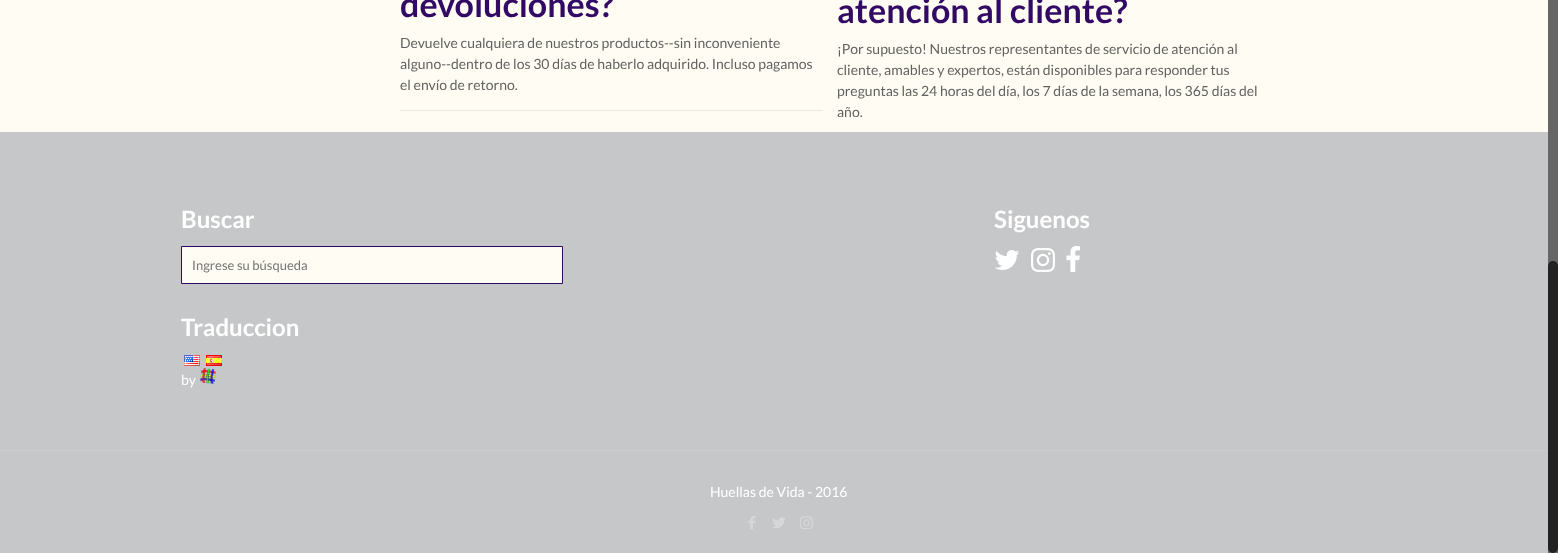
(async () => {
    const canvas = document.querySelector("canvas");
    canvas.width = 1558;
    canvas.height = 553;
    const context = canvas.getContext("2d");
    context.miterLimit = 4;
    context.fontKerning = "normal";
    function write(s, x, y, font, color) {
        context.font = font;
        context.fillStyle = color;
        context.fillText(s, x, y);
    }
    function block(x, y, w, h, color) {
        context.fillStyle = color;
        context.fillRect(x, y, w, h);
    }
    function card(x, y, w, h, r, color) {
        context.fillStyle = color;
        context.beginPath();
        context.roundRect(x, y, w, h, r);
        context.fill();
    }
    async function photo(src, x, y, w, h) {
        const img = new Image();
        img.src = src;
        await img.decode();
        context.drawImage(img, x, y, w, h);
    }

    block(0, 0, 1558, 553, "rgb(198, 199, 200)");
    block(0, 0, 1548, 132, "rgb(255, 253, 243)");
    write("devoluciones?", 400, 17, "bold 34px Lato", "rgb(50, 9, 101)");
    write("atención al cliente?", 837, 23, "bold 34px Lato", "rgb(50, 9, 101)");
    write("Devuelve cualquiera de nuestros productos--sin inconveniente", 400, 48, "14px Lato", "rgb(98, 98, 98)");
    write("alguno--dentro de los 30 días de haberlo adquirido. Incluso pagamos", 400, 69, "14px Lato", "rgb(98, 98, 98)");
    write("el envío de retorno.", 400, 90, "14px Lato", "rgb(98, 98, 98)");
    write("¡Por supuesto! Nuestros representantes de servicio de atención al", 837, 54, "14px Lato", "rgb(98, 98, 98)");
    write("cliente, amables y expertos, están disponibles para responder tus", 837, 75, "14px Lato", "rgb(98, 98, 98)");
    write("preguntas las 24 horas del día, los 7 días de la semana, los 365 días del", 837, 96, "14px Lato", "rgb(98, 98, 98)");
    write("año.", 837, 117, "14px Lato", "rgb(98, 98, 98)");
    block(400, 110, 423, 1, "rgb(235, 233, 224)");
    write("Buscar", 181, 228, "bold 24px Lato", "rgb(255, 255, 255)");
    context.fillStyle = "rgb(255, 253, 243)";
    context.beginPath();
    context.rect(181.5, 246.5, 381, 37);
    context.fill();
    context.strokeStyle = "rgb(50, 9, 101)";
    context.stroke();
    write("Ingrese su búsqueda", 192, 270, "13px Lato", "rgb(117, 117, 117)");
    write("Traduccion", 181, 336, "bold 24px Lato", "rgb(255, 255, 255)");
    await photo("media/1.png", 184, 355, 16, 11);
    await photo("media/2.png", 206, 355, 16, 11);
    write("by", 181, 385, "14px Lato", "rgb(255, 255, 255)");
    await photo("media/3.png", 200, 368, 16, 16);
    write("Siguenos", 994, 228, "bold 24px Lato", "rgb(255, 255, 255)");
    await photo("media/4.png", 995, 250, 24, 20);
    await photo("media/5.png", 1031, 248, 24, 24);
    await photo("media/6.png", 1066, 246, 14, 26);
    block(0, 450, 1548, 1, "rgb(204, 205, 206)");
    write("Huellas de Vida - 2016", 710, 497, "14px Lato", "rgb(255, 255, 255)");
    await photo("media/7.png", 748, 516, 8, 14);
    await photo("media/8.png", 772, 517, 13, 12);
    await photo("media/9.png", 800, 516, 13, 13);
    block(1548, 0, 10, 553, "rgb(102, 102, 102)");
    card(1548, 261, 10, 292, 5, "rgb(34, 34, 34)");
})();
